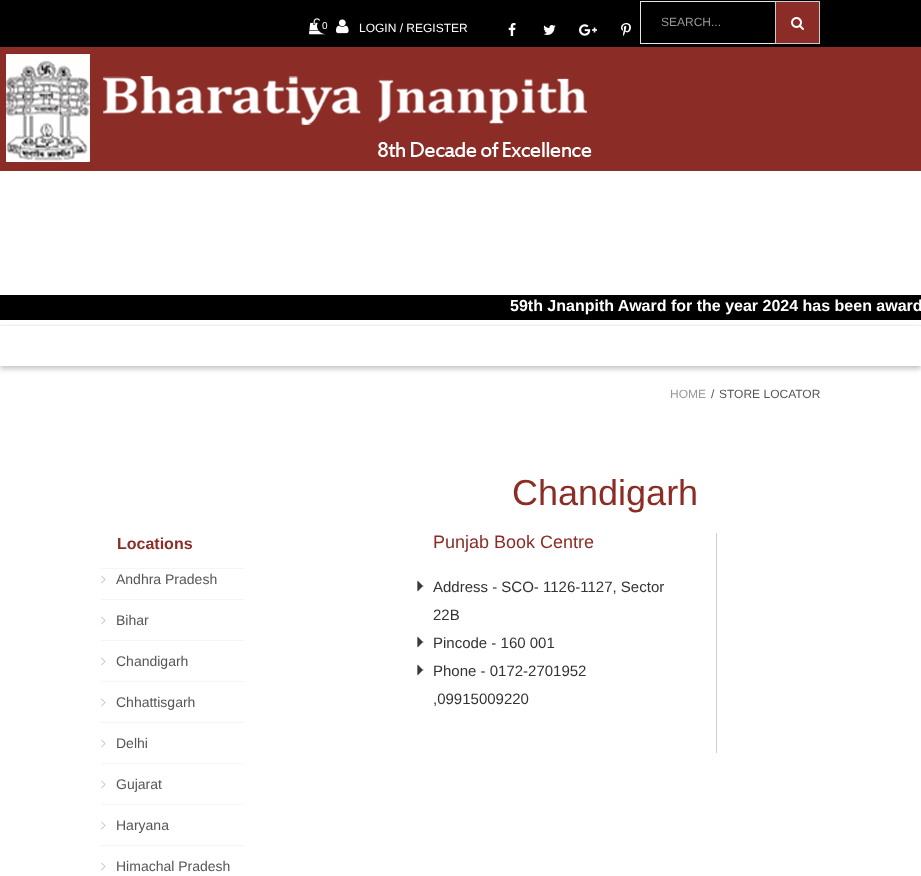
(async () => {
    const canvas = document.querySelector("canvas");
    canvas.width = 921;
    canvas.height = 876;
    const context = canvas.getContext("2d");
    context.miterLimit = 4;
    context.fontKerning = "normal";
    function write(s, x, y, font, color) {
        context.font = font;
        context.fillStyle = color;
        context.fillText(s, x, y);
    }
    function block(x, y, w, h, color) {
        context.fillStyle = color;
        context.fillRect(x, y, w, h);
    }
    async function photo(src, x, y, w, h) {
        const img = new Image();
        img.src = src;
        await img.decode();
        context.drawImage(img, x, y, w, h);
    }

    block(0, 0, 921, 876, "rgb(255, 255, 255)");
    block(0, 0, 921, 47, "rgb(0, 0, 0)");
    await photo("media/1.png", 309, 18, 16, 17);
    context.beginPath();
    context.arc(325, 26, 7.5, 0, Math.PI * 2);
    context.fill();
    context.strokeStyle = "rgb(0, 0, 0)";
    context.stroke();
    write("0", 322, 29, "10px Liberation Sans", "rgb(255, 255, 255)");
    await photo("media/2.png", 336, 19, 13, 15);
    write("LOGIN / REGISTER", 359, 32, "12px Liberation Sans", "rgb(255, 255, 255)");
    await photo("media/3.png", 508, 23, 8, 13);
    await photo("media/4.png", 543, 25, 13, 10);
    await photo("media/5.png", 579, 24, 18, 12);
    await photo("media/6.png", 621, 23, 10, 13);
    context.strokeStyle = "rgb(230, 230, 230)";
    context.strokeRect(640.5, 1.5, 179, 42);
    write("SEARCH...", 661, 26, "12px Liberation Sans", "rgb(153, 153, 153)");
    context.fillStyle = "rgb(139, 44, 38)";
    context.beginPath();
    context.rect(775.5, 1.5, 44, 42);
    context.fill();
    context.strokeStyle = "rgb(204, 204, 204)";
    context.stroke();
    await photo("media/7.png", 791, 17, 13, 13);
    block(0, 47, 921, 124, "rgb(139, 44, 38)");
    await photo("media/8.png", 6, 54, 586, 108);
    block(0, 295, 921, 25, "rgb(0, 0, 0)");
    write("59th Jnanpith Award for the year 2024 has been award", 510, 311, "bold 16px Liberation Sans", "rgb(255, 255, 255)");
    context.save();
    context.beginPath();
    context.moveTo(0, 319);
    context.lineTo(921, 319);
    context.lineTo(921, 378);
    context.lineTo(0, 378);
    context.closePath();
    context.moveTo(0, 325);
    context.lineTo(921, 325);
    context.lineTo(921, 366);
    context.lineTo(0, 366);
    context.closePath();
    context.clip("evenodd");
    context.fillStyle = "rgba(50, 50, 50, 0.28)";
    context.filter = "blur(2.5px)";
    context.beginPath();
    context.rect(0, 328, 921, 41);
    context.fill();
    context.filter = "none";
    context.restore();
    block(0, 325, 921, 1, "rgb(238, 238, 238)");
    write("HOME", 670, 398, "12px Liberation Sans", "rgb(153, 153, 153)");
    write("/", 711, 398, "12px Liberation Sans", "rgb(85, 85, 85)");
    write("STORE LOCATOR", 719, 398, "12px Liberation Sans", "rgb(85, 85, 85)");
    block(101, 568, 143, 1, "rgb(245, 245, 245)");
    write("Locations", 117, 549, "bold 16px Liberation Sans", "rgb(139, 44, 38)");
    block(101, 599, 143, 1, "rgb(245, 245, 245)");
    await photo("media/9.png", 101, 575, 5, 9);
    write("Andhra Pradesh", 116, 584, "14px Liberation Sans", "rgb(85, 85, 85)");
    block(101, 640, 143, 1, "rgb(245, 245, 245)");
    await photo("media/9.png", 101, 616, 5, 9);
    write("Bihar", 116, 625, "14px Liberation Sans", "rgb(85, 85, 85)");
    block(101, 681, 143, 1, "rgb(245, 245, 245)");
    await photo("media/9.png", 101, 657, 5, 9);
    write("Chandigarh", 116, 666, "14px Liberation Sans", "rgb(85, 85, 85)");
    block(101, 722, 143, 1, "rgb(245, 245, 245)");
    await photo("media/9.png", 101, 698, 5, 9);
    write("Chhattisgarh", 116, 707, "14px Liberation Sans", "rgb(85, 85, 85)");
    block(101, 763, 143, 1, "rgb(245, 245, 245)");
    await photo("media/9.png", 101, 739, 5, 9);
    write("Delhi", 116, 748, "14px Liberation Sans", "rgb(85, 85, 85)");
    block(101, 804, 143, 1, "rgb(245, 245, 245)");
    await photo("media/9.png", 101, 780, 5, 9);
    write("Gujarat", 116, 789, "14px Liberation Sans", "rgb(85, 85, 85)");
    block(101, 845, 143, 1, "rgb(245, 245, 245)");
    await photo("media/9.png", 101, 821, 5, 9);
    write("Haryana", 116, 830, "14px Liberation Sans", "rgb(85, 85, 85)");
    await photo("media/9.png", 101, 862, 5, 9);
    write("Himachal Pradesh", 116, 871, "14px Liberation Sans", "rgb(85, 85, 85)");
    write("Chandigarh", 512, 505, "36px Liberation Sans", "rgb(139, 44, 38)");
    block(716, 533, 1, 220, "rgb(204, 204, 204)");
    write("Punjab Book Centre", 433, 548, "18px Liberation Sans", "rgb(139, 44, 38)");
    await photo("media/10.png", 417, 580, 7, 12);
    write("Address - SCO- 1126-1127, Sector", 433, 592, "15px Liberation Sans", "rgb(51, 51, 51)");
    write("22B", 433, 620, "15px Liberation Sans", "rgb(51, 51, 51)");
    await photo("media/10.png", 417, 636, 7, 12);
    write("Pincode - 160 001", 433, 648, "15px Liberation Sans", "rgb(51, 51, 51)");
    await photo("media/10.png", 417, 664, 7, 12);
    write("Phone - 0172-2701952", 433, 676, "15px Liberation Sans", "rgb(51, 51, 51)");
    write(",09915009220", 433, 704, "15px Liberation Sans", "rgb(51, 51, 51)");
})();
